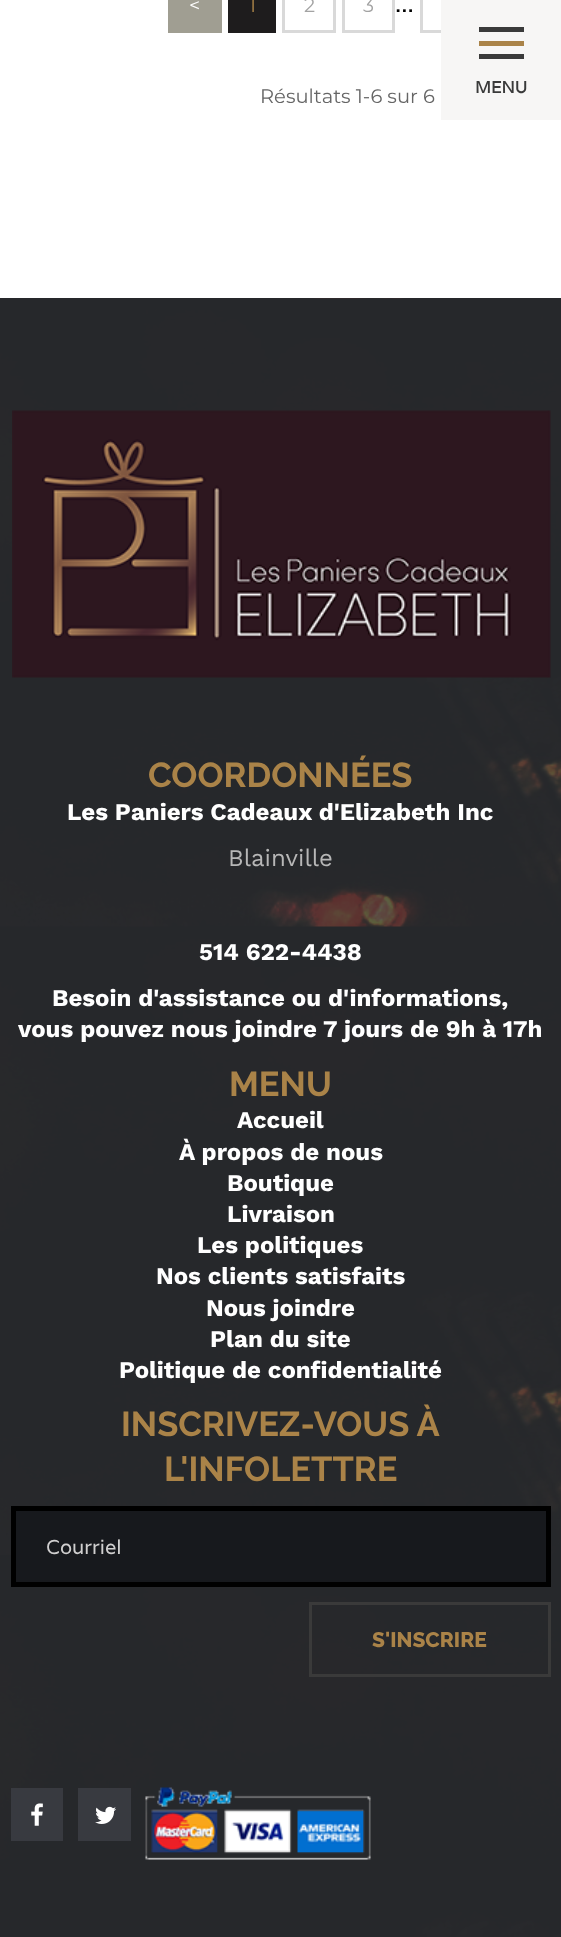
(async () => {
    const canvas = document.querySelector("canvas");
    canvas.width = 561;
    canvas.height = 1937;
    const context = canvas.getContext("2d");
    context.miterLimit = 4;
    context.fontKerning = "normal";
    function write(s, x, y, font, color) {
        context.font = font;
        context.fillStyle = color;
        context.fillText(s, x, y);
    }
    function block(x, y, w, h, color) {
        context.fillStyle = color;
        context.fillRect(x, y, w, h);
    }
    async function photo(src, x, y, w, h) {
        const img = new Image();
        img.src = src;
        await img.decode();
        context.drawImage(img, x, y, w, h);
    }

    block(0, 0, 561, 1937, "rgb(255, 255, 255)");
    block(168, 0, 54, 33, "rgb(160, 158, 146)");
    write("<", 189, 12, "19.5px Montserrat", "rgb(255, 255, 255)");
    block(228, 0, 48, 33, "rgb(30, 28, 29)");
    write("1", 249, 12, "19.5px Montserrat", "rgb(170, 131, 72)");
    context.strokeStyle = "rgb(217, 217, 217)";
    context.lineWidth = 3;
    context.strokeRect(283.5, -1.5, 51, 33);
    write("2", 304, 12, "19.5px Montserrat", "rgb(163, 163, 163)");
    context.strokeRect(343.5, -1.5, 50, 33);
    write("3", 363, 12, "19.5px Montserrat", "rgb(163, 163, 163)");
    context.strokeRect(421.5, -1.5, 53, 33);
    write("...", 395, 12, "24px Varela", "rgb(0, 0, 0)");
    write("Résultats 1-6 sur 6", 260, 103, "19.5px Montserrat", "rgb(101, 101, 101)");
    block(441, 0, 120, 120, "rgb(247, 246, 245)");
    block(479, 27, 45, 5, "rgb(58, 58, 58)");
    block(479, 41, 45, 5, "rgb(170, 131, 72)");
    block(479, 54, 45, 5, "rgb(58, 58, 58)");
    write("MENU", 475, 93, "bold 16.5px Varela", "rgb(58, 58, 58)");
    await photo("media/1.png", 0, 298, 561, 1639);
    await photo("media/2.png", 12, 410, 539, 268);
    write("COORDONNÉES", 148, 787, "bold 34.5px Raleway", "rgb(170, 131, 72)");
    write("Les Paniers Cadeaux d'Elizabeth Inc", 67, 820, "bold 24px Work Sans", "rgb(255, 255, 255)");
    write("Blainville", 228, 866, "24px Work Sans", "rgb(183, 183, 183)");
    write("514 622-4438", 199, 960, "bold 24px Work Sans", "rgb(255, 255, 255)");
    write("Besoin d'assistance ou d'informations,", 52, 1006, "bold 24px Work Sans", "rgb(255, 255, 255)");
    write("vous pouvez nous joindre 7 jours de 9h à 17h", 18, 1037, "bold 24px Work Sans", "rgb(255, 255, 255)");
    write("MENU", 229, 1096, "bold 34.5px Raleway", "rgb(170, 131, 72)");
    write("Accueil", 237, 1128, "bold 24px Work Sans", "rgb(255, 255, 255)");
    write("À propos de nous", 179, 1160, "bold 24px Work Sans", "rgb(255, 255, 255)");
    write("Boutique", 227, 1191, "bold 24px Work Sans", "rgb(255, 255, 255)");
    write("Livraison", 227, 1222, "bold 24px Work Sans", "rgb(255, 255, 255)");
    write("Les politiques", 197, 1253, "bold 24px Work Sans", "rgb(255, 255, 255)");
    write("Nos clients satisfaits", 156, 1284, "bold 24px Work Sans", "rgb(255, 255, 255)");
    write("Nous joindre", 206, 1316, "bold 24px Work Sans", "rgb(255, 255, 255)");
    write("Plan du site", 210, 1347, "bold 24px Work Sans", "rgb(255, 255, 255)");
    write("Politique de confidentialité", 119, 1378, "bold 24px Work Sans", "rgb(255, 255, 255)");
    write("INSCRIVEZ-VOUS À", 121, 1436, "bold 34.5px Raleway", "rgb(170, 131, 72)");
    write("L'INFOLETTRE", 164, 1481, "bold 34.5px Raleway", "rgb(170, 131, 72)");
    context.fillStyle = "rgb(23, 25, 29)";
    context.beginPath();
    context.rect(13.5, 1508.5, 535, 76);
    context.fill();
    context.strokeStyle = "rgb(0, 0, 0)";
    context.lineWidth = 5;
    context.stroke();
    write("Courriel", 46, 1554, "20px Varela", "rgb(208, 207, 207)");
    context.strokeStyle = "rgb(58, 58, 58)";
    context.lineWidth = 3;
    context.strokeRect(310.5, 1603.5, 239, 72);
    write("S'INSCRIRE", 372, 1647, "800 21px Raleway", "rgb(170, 131, 72)");
    block(11, 1788, 52, 53, "rgb(56, 58, 64)");
    await photo("media/3.png", 31, 1803, 12, 23);
    block(78, 1788, 53, 53, "rgb(56, 58, 64)");
    await photo("media/4.png", 95, 1806, 21, 18);
    await photo("media/5.png", 145, 1787, 226, 73);
})();
